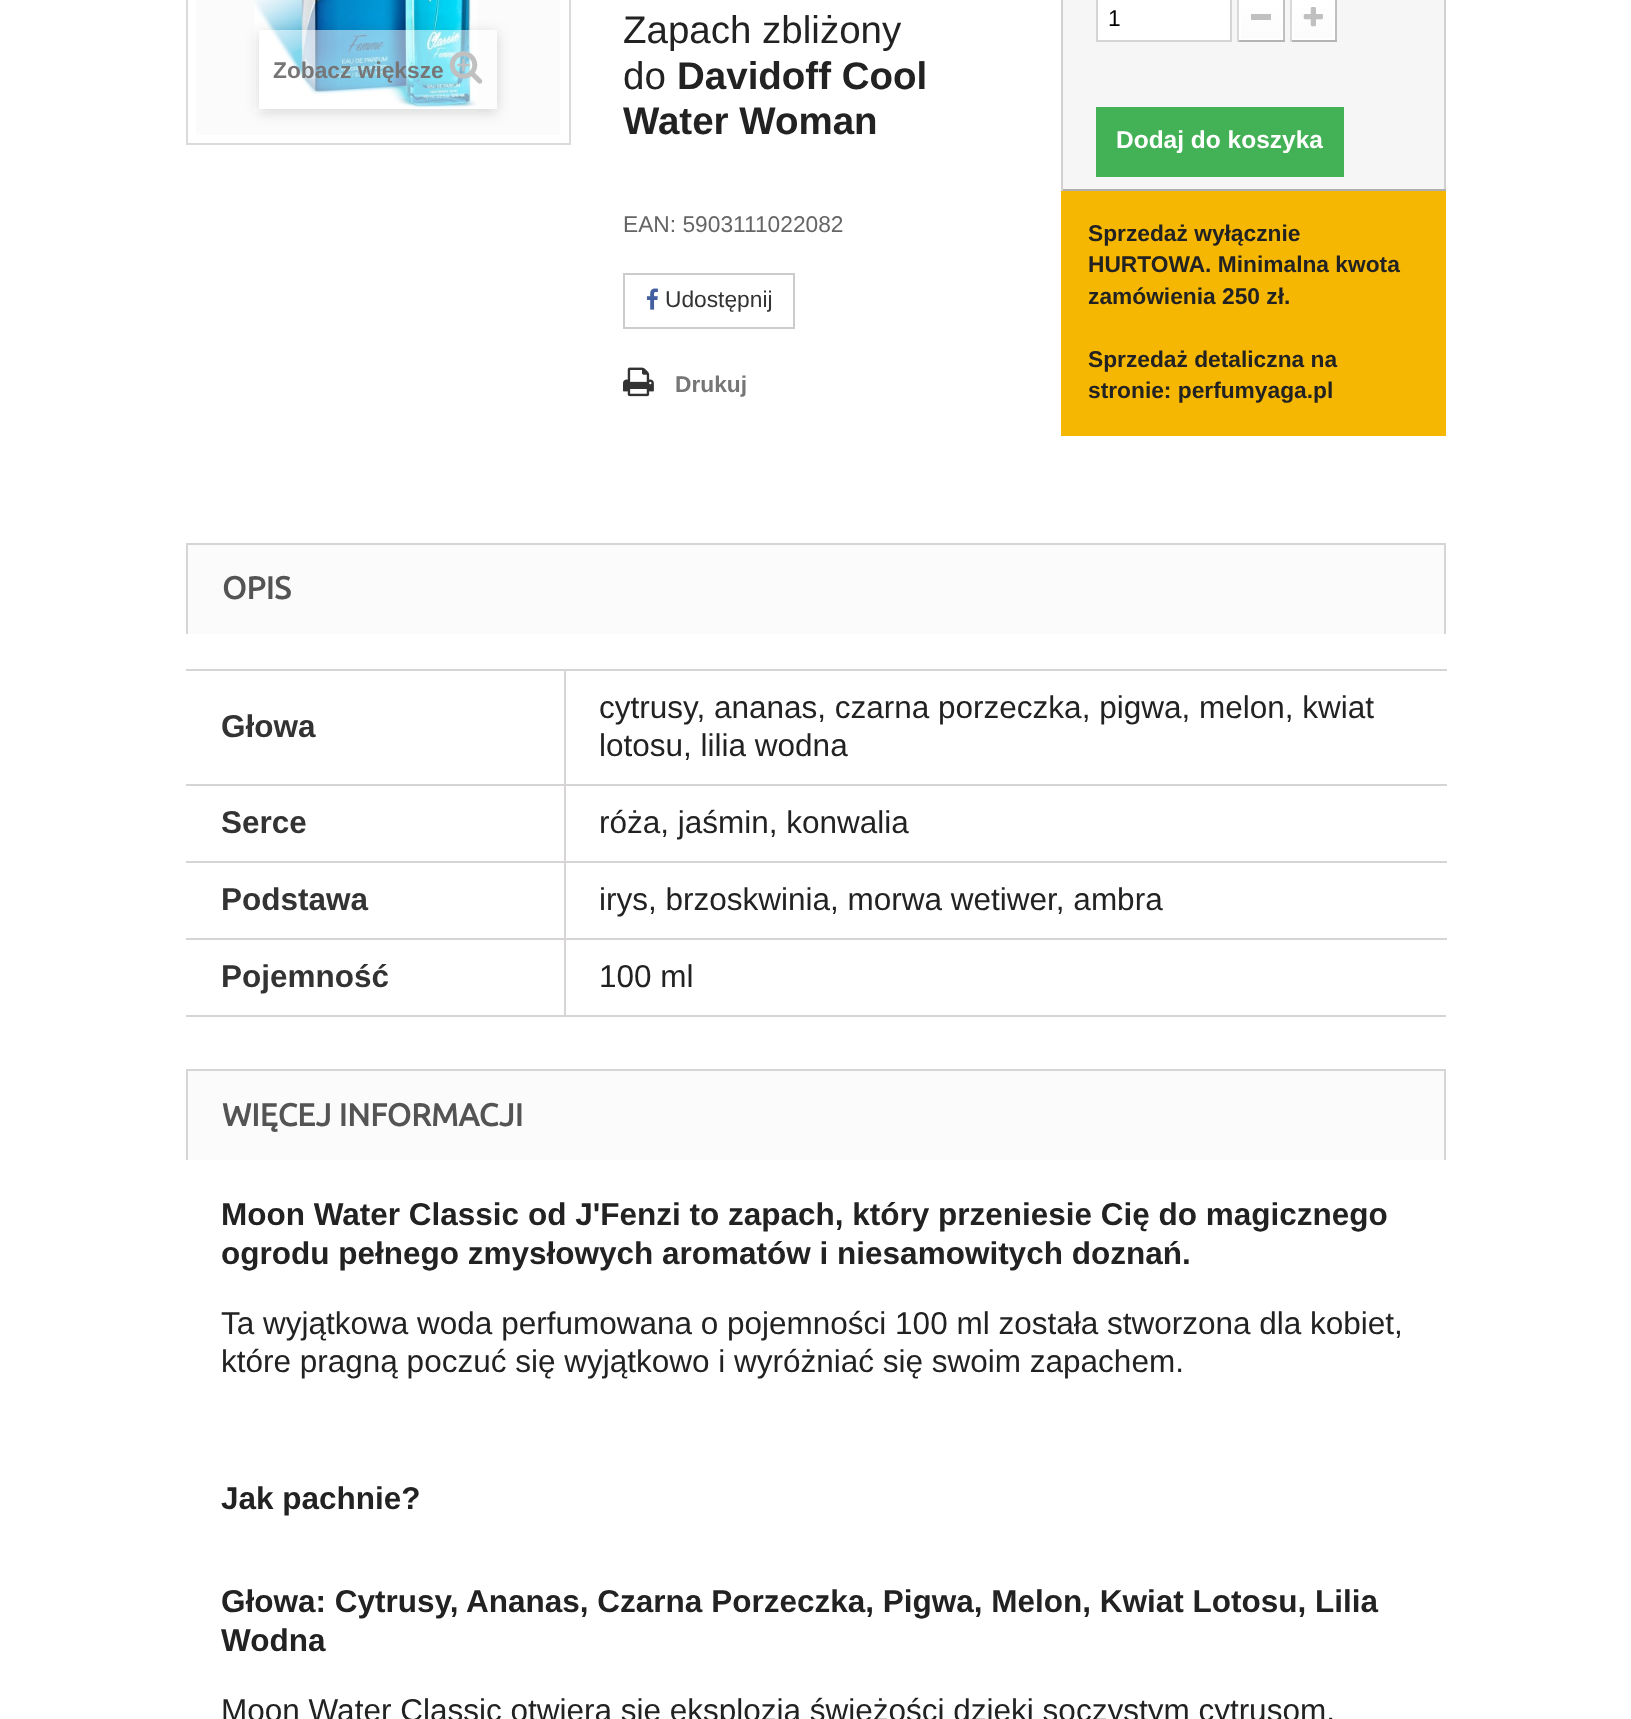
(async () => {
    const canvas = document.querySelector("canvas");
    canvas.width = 1631;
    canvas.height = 1719;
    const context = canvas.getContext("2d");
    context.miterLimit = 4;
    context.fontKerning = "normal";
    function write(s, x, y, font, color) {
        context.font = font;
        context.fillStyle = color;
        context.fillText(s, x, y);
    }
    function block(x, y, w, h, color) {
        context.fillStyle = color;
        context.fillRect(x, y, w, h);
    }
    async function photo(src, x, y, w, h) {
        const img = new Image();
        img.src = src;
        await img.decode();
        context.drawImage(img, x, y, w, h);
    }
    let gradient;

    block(0, 0, 1631, 1719, "rgb(255, 255, 255)");
    context.strokeStyle = "rgb(219, 219, 219)";
    context.lineWidth = 2;
    context.strokeRect(187, -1, 383, 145);
    block(196, 0, 364, 135, "rgb(251, 251, 251)");
    await photo("media/1.png", 254, 0, 223, 112);
    context.save();
    context.beginPath();
    context.moveTo(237, 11);
    context.lineTo(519, 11);
    context.lineTo(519, 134);
    context.lineTo(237, 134);
    context.closePath();
    context.moveTo(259, 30);
    context.lineTo(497, 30);
    context.lineTo(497, 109);
    context.lineTo(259, 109);
    context.closePath();
    context.clip("evenodd");
    context.fillStyle = "rgba(0, 0, 0, 0.16)";
    context.filter = "blur(7px)";
    context.beginPath();
    context.rect(259, 33, 238, 79);
    context.fill();
    context.filter = "none";
    context.restore();
    block(259, 30, 238, 79, "rgba(255, 255, 255, 0.5)");
    write("Zobacz większe", 273, 78, "bold 22.75px Liberation Sans", "rgb(119, 118, 118)");
    await photo("media/2.png", 449, 51, 34, 33);
    write("Zapach zbliżony", 623, 43, "38.5px Liberation Sans", "rgb(34, 34, 34)");
    write("do", 623, 89, "38.5px Liberation Sans", "rgb(34, 34, 34)");
    write("Davidoff Cool", 677, 89, "bold 38.5px Liberation Sans", "rgb(34, 34, 34)");
    write("Water Woman", 623, 134, "bold 38.5px Liberation Sans", "rgb(34, 34, 34)");
    write("EAN: 5903111022082", 623, 232, "22.75px Liberation Sans", "rgb(102, 102, 102)");
    context.strokeStyle = "rgb(204, 204, 204)";
    context.strokeRect(624, 274, 170, 54);
    await photo("media/3.png", 646, 288, 12, 22);
    write("Udostępnij", 665, 307, "22.75px Liberation Sans", "rgb(51, 51, 51)");
    await photo("media/4.png", 623, 367, 31, 30);
    write("Drukuj", 675, 392, "bold 22.75px Liberation Sans", "rgb(119, 118, 118)");
    block(1063, 0, 381, 189, "rgb(246, 246, 246)");
    block(1444, 0, 2, 191, "rgb(210, 208, 208)");
    block(1061, 189, 385, 2, "rgb(176, 175, 175)");
    block(1061, 0, 2, 191, "rgb(210, 208, 208)");
    context.fillStyle = "rgb(255, 255, 255)";
    context.beginPath();
    context.rect(1097, -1, 134, 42);
    context.fill();
    context.strokeStyle = "rgb(214, 212, 212)";
    context.stroke();
    write("1", 1108, 26, "22.75px Liberation Sans", "rgb(0, 0, 0)");
    block(1283, 0, 2, 42, "rgb(193, 191, 191)");
    block(1237, 40, 48, 2, "rgb(181, 180, 180)");
    block(1237, 0, 2, 42, "rgb(218, 216, 216)");
    gradient = context.createLinearGradient(1261, -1.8, 1261, 39);
    gradient.addColorStop(0, "rgb(255, 255, 255)");
    gradient.addColorStop(1, "rgb(251, 251, 251)");
    context.fillStyle = gradient;
    context.fillRect(1241, 0, 40, 38);
    context.strokeStyle = "rgb(255, 255, 255)";
    context.strokeRect(1240, -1, 42, 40);
    block(1251, 14, 20, 6, "rgb(192, 192, 192)");
    block(1335, 0, 2, 42, "rgb(193, 191, 191)");
    block(1290, 40, 47, 2, "rgb(181, 180, 180)");
    block(1290, 0, 2, 42, "rgb(218, 216, 216)");
    gradient = context.createLinearGradient(1313, -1.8, 1313, 39);
    gradient.addColorStop(0, "rgb(255, 255, 255)");
    gradient.addColorStop(1, "rgb(251, 251, 251)");
    context.fillStyle = gradient;
    context.fillRect(1294, 0, 39, 38);
    context.strokeRect(1293, -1, 41, 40);
    await photo("media/5.png", 1303, 7, 20, 20);
    block(1096, 107, 248, 70, "rgb(67, 177, 85)");
    write("Dodaj do koszyka", 1116, 148, "bold 24.5px Liberation Sans", "rgb(255, 255, 255)");
    block(1061, 191, 385, 245, "rgb(245, 183, 2)");
    write("Sprzedaż wyłącznie", 1088, 241, "bold 22.75px Liberation Sans", "rgb(34, 34, 34)");
    write("HURTOWA. Minimalna kwota", 1088, 272, "bold 22.75px Liberation Sans", "rgb(34, 34, 34)");
    write("zamówienia 250 zł.", 1088, 304, "bold 22.75px Liberation Sans", "rgb(34, 34, 34)");
    write("Sprzedaż detaliczna na", 1088, 367, "bold 22.75px Liberation Sans", "rgb(34, 34, 34)");
    write("stronie: perfumyaga.pl", 1088, 398, "bold 22.75px Liberation Sans", "rgb(34, 34, 34)");
    block(188, 545, 1256, 89, "rgb(251, 251, 251)");
    block(186, 543, 1260, 2, "rgb(214, 212, 212)");
    block(1444, 543, 2, 91, "rgb(214, 212, 212)");
    block(186, 543, 2, 91, "rgb(214, 212, 212)");
    write("OPIS", 222, 599, "bold 31.5px Ubuntu", "rgb(85, 84, 84)");
    block(186, 1015, 1260, 2, "rgb(214, 212, 212)");
    block(186, 669, 1261, 2, "rgb(214, 212, 212)");
    write("Głowa", 221, 737, "bold 31.5px Liberation Sans", "rgb(51, 51, 51)");
    write("cytrusy, ananas, czarna porzeczka, pigwa, melon, kwiat", 599, 718, "31.5px Liberation Sans", "rgb(34, 34, 34)");
    write("lotosu, lilia wodna", 599, 756, "31.5px Liberation Sans", "rgb(34, 34, 34)");
    block(186, 784, 1261, 2, "rgb(214, 212, 212)");
    write("Serce", 221, 833, "bold 31.5px Liberation Sans", "rgb(51, 51, 51)");
    write("róża, jaśmin, konwalia", 599, 833, "31.5px Liberation Sans", "rgb(34, 34, 34)");
    block(186, 861, 1261, 2, "rgb(214, 212, 212)");
    write("Podstawa", 221, 910, "bold 31.5px Liberation Sans", "rgb(51, 51, 51)");
    write("irys, brzoskwinia, morwa wetiwer, ambra", 599, 910, "31.5px Liberation Sans", "rgb(34, 34, 34)");
    block(186, 938, 1261, 2, "rgb(214, 212, 212)");
    block(564, 669, 2, 348, "rgb(214, 212, 212)");
    write("Pojemność", 221, 987, "bold 31.5px Liberation Sans", "rgb(51, 51, 51)");
    write("100 ml", 599, 987, "31.5px Liberation Sans", "rgb(34, 34, 34)");
    block(188, 1071, 1256, 89, "rgb(251, 251, 251)");
    block(186, 1069, 1260, 2, "rgb(214, 212, 212)");
    block(1444, 1069, 2, 91, "rgb(214, 212, 212)");
    block(186, 1069, 2, 91, "rgb(214, 212, 212)");
    write("WIĘCEJ INFORMACJI", 222, 1126, "bold 31.5px Ubuntu", "rgb(85, 84, 84)");
    write("Moon Water Classic od J'Fenzi to zapach, który przeniesie Cię do magicznego", 221, 1225, "bold 31.5px Liberation Sans", "rgb(34, 34, 34)");
    write("ogrodu pełnego zmysłowych aromatów i niesamowitych doznań.", 221, 1264, "bold 31.5px Liberation Sans", "rgb(34, 34, 34)");
    write("Ta wyjątkowa woda perfumowana o pojemności 100 ml została stworzona dla kobiet,", 221, 1334, "31.5px Liberation Sans", "rgb(34, 34, 34)");
    write("które pragną poczuć się wyjątkowo i wyróżniać się swoim zapachem.", 221, 1372, "31.5px Liberation Sans", "rgb(34, 34, 34)");
    write("Jak pachnie?", 221, 1509, "bold 31.5px Liberation Sans", "rgb(34, 34, 34)");
    write("Głowa: Cytrusy, Ananas, Czarna Porzeczka, Pigwa, Melon, Kwiat Lotosu, Lilia", 221, 1612, "bold 31.5px Liberation Sans", "rgb(34, 34, 34)");
    write("Wodna", 221, 1651, "bold 31.5px Liberation Sans", "rgb(34, 34, 34)");
    write("Moon Water Classic otwiera się eksplozją świeżości dzięki soczystym cytrusom,", 221, 1721, "31.5px Liberation Sans", "rgb(34, 34, 34)");
})();
